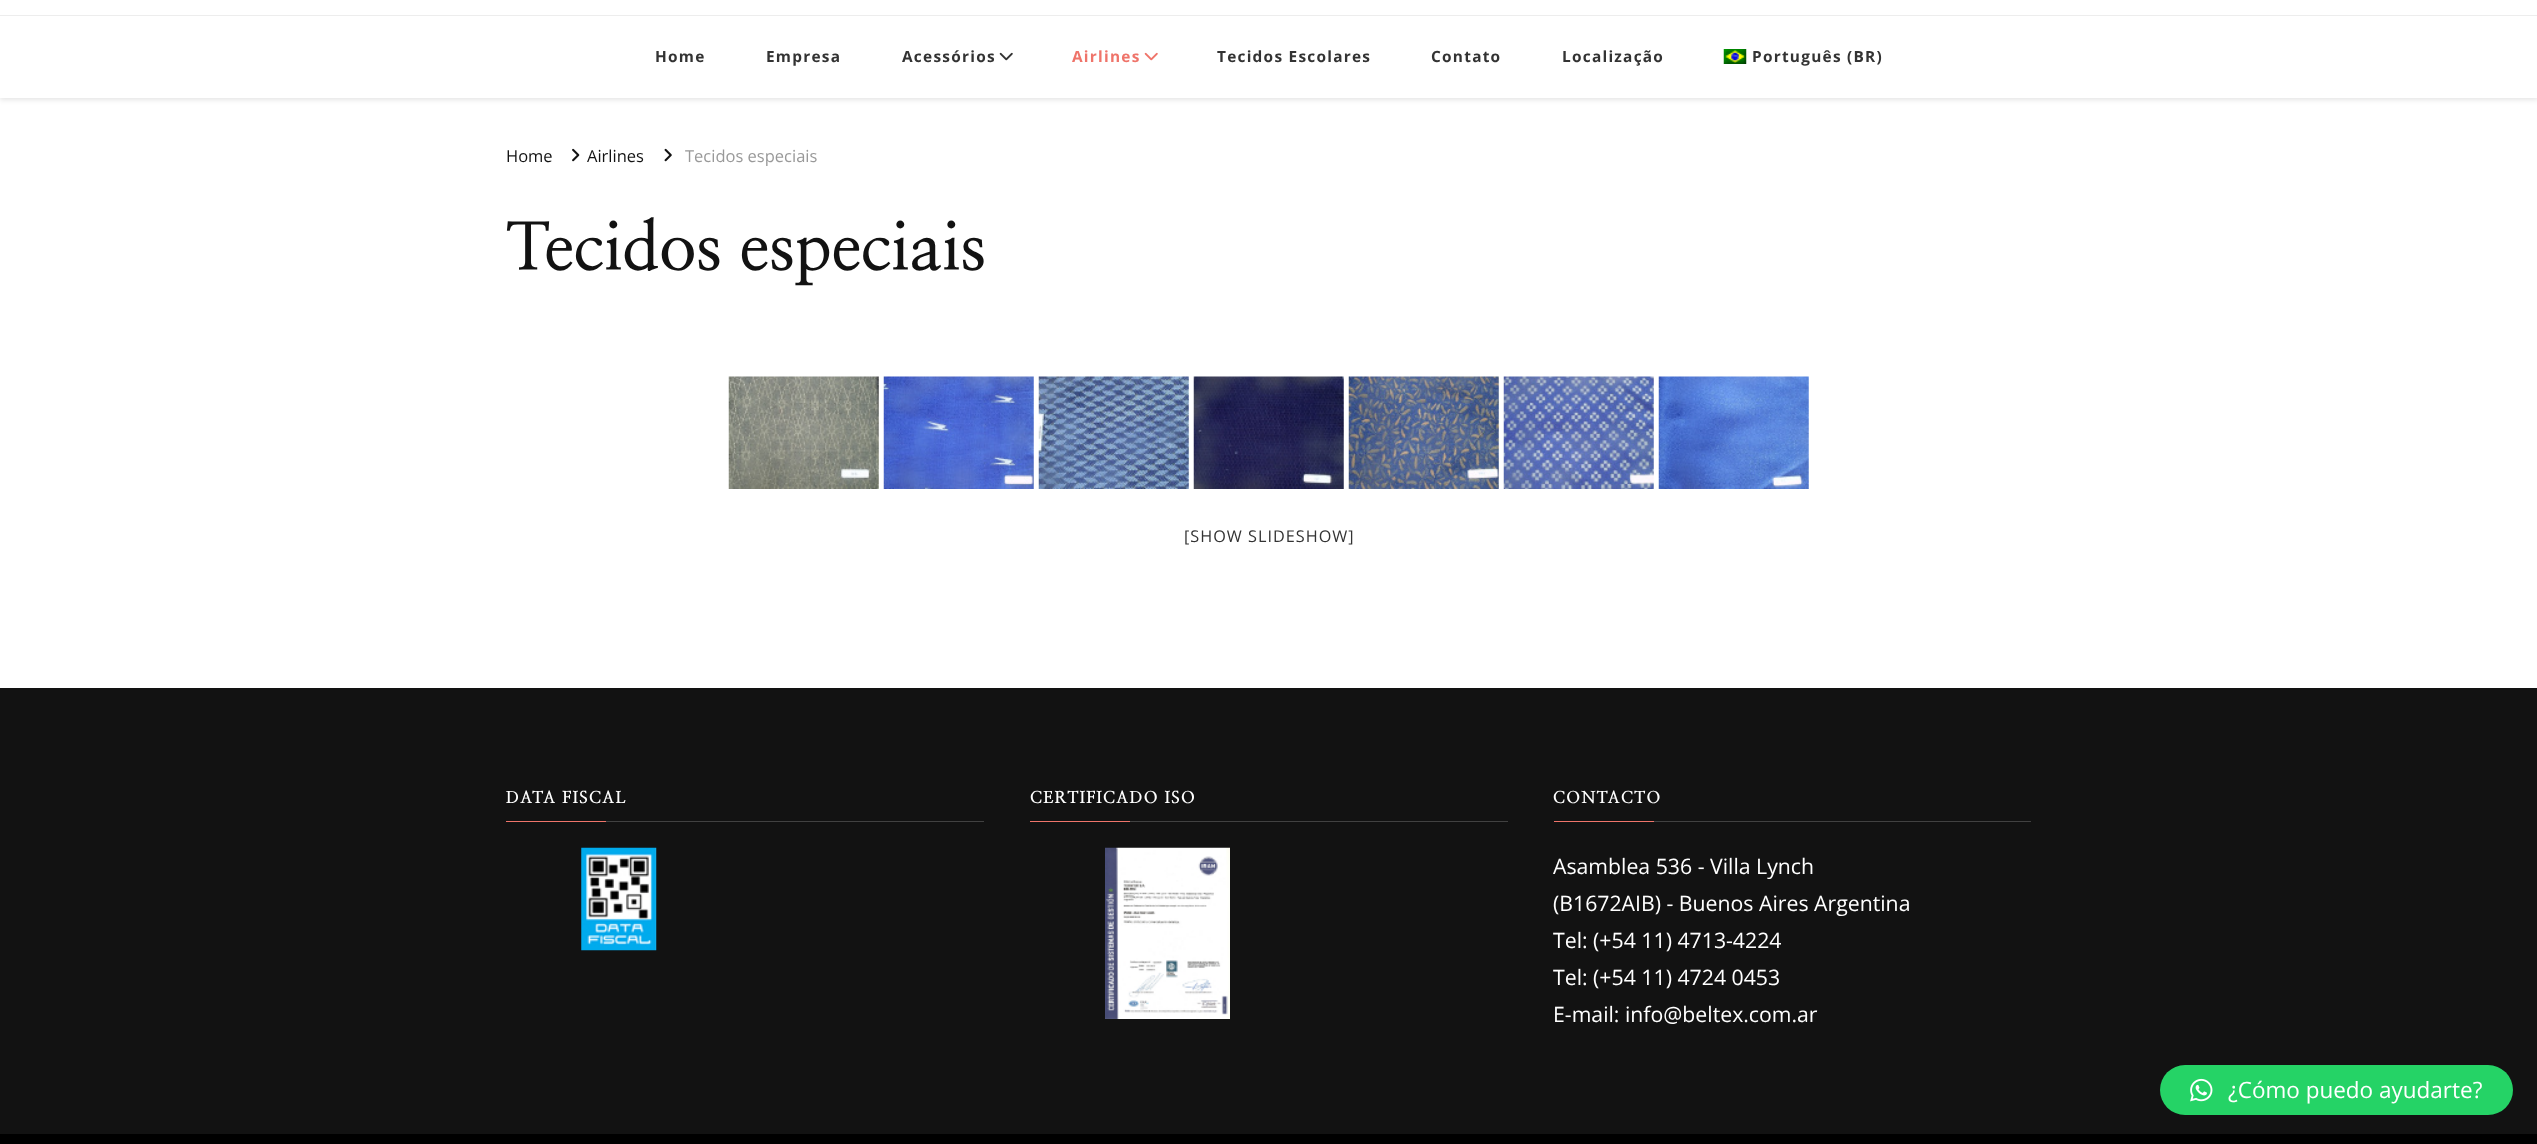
(async () => {
    const canvas = document.querySelector("canvas");
    canvas.width = 2537;
    canvas.height = 1144;
    const context = canvas.getContext("2d");
    context.miterLimit = 4;
    context.fontKerning = "normal";
    function write(s, x, y, font, color) {
        context.font = font;
        context.fillStyle = color;
        context.fillText(s, x, y);
    }
    function block(x, y, w, h, color) {
        context.fillStyle = color;
        context.fillRect(x, y, w, h);
    }
    function card(x, y, w, h, r, color) {
        context.fillStyle = color;
        context.beginPath();
        context.roundRect(x, y, w, h, r);
        context.fill();
    }
    async function photo(src, x, y, w, h) {
        const img = new Image();
        img.src = src;
        await img.decode();
        context.drawImage(img, x, y, w, h);
    }

    block(0, 0, 2537, 1144, "rgb(255, 255, 255)");
    context.save();
    context.beginPath();
    context.moveTo(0, 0);
    context.lineTo(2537, 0);
    context.lineTo(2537, 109);
    context.lineTo(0, 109);
    context.closePath();
    context.moveTo(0, -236);
    context.lineTo(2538, -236);
    context.lineTo(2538, 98);
    context.lineTo(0, 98);
    context.closePath();
    context.clip("evenodd");
    context.fillStyle = "rgba(0, 0, 0, 0.1)";
    context.filter = "blur(2.5px)";
    context.beginPath();
    context.rect(0, -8, 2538, 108);
    context.fill();
    context.filter = "none";
    context.restore();
    block(0, 15, 2537, 1, "rgb(237, 237, 237)");
    context.letterSpacing = "1.25px";
    write("Home", 655, 62, "bold 15.4px Open Sans", "rgb(51, 51, 51)");
    write("Empresa", 766, 62, "bold 15.4px Open Sans", "rgb(51, 51, 51)");
    write("Acessórios", 902, 62, "bold 15.4px Open Sans", "rgb(51, 51, 51)");
    await photo("media/1.png", 999, 52, 14, 9);
    write("Airlines", 1072, 62, "bold 15.4px Open Sans", "rgb(239, 116, 106)");
    await photo("media/2.png", 1144, 52, 14, 9);
    write("Tecidos Escolares", 1217, 62, "bold 15.4px Open Sans", "rgb(51, 51, 51)");
    write("Contato", 1431, 62, "bold 15.4px Open Sans", "rgb(51, 51, 51)");
    write("Localização", 1562, 62, "bold 15.4px Open Sans", "rgb(51, 51, 51)");
    await photo("media/3.png", 1723, 49, 24, 15);
    write("Português (BR)", 1752, 62, "bold 15.4px Open Sans", "rgb(51, 51, 51)");
    context.letterSpacing = "0px";
    write("Home", 506, 162, "16.5px Open Sans", "rgb(18, 18, 18)");
    await photo("media/4.png", 572, 148, 8, 14);
    write("Airlines", 587, 162, "16.5px Open Sans", "rgb(18, 18, 18)");
    await photo("media/5.png", 664, 148, 8, 14);
    write("Tecidos especiais", 685, 162, "16.5px Open Sans", "rgb(153, 153, 153)");
    write("Tecidos especiais", 506, 270, "bold 66px NanumMyeongjo", "rgb(18, 18, 18)");
    await photo("media/6.png", 728, 376, 151, 113);
    await photo("media/7.png", 883, 376, 151, 113);
    await photo("media/8.png", 1038, 376, 151, 113);
    await photo("media/9.png", 1193, 376, 151, 113);
    await photo("media/10.png", 1348, 376, 151, 113);
    await photo("media/11.png", 1503, 376, 151, 113);
    await photo("media/12.png", 1658, 376, 151, 113);
    context.letterSpacing = "1px";
    write("[SHOW SLIDESHOW]", 1184, 542, "16.25px Open Sans", "rgb(51, 51, 51)");
    block(0, 688, 2537, 446, "rgb(18, 18, 18)");
    block(606, 821, 378, 1, "rgb(65, 65, 65)");
    context.letterSpacing = "1.25px";
    write("DATA FISCAL", 506, 803, "800 16.5px NanumMyeongjo", "rgb(255, 255, 255)");
    block(506, 821, 100, 1, "rgb(239, 116, 106)");
    await photo("media/13.png", 581, 847, 76, 104);
    block(1130, 821, 378, 1, "rgb(65, 65, 65)");
    write("CERTIFICADO ISO", 1030, 803, "800 16.5px NanumMyeongjo", "rgb(255, 255, 255)");
    block(1030, 821, 100, 1, "rgb(239, 116, 106)");
    await photo("media/14.png", 1105, 847, 125, 172);
    block(1654, 821, 377, 1, "rgb(65, 65, 65)");
    write("CONTACTO", 1553, 803, "800 16.5px NanumMyeongjo", "rgb(255, 255, 255)");
    block(1554, 821, 100, 1, "rgb(239, 116, 106)");
    context.letterSpacing = "0px";
    write("Asamblea 536 - Villa Lynch", 1553, 874, "21.25px Open Sans", "rgb(255, 255, 255)");
    write("(B1672AIB) - Buenos Aires Argentina", 1553, 911, "21.25px Open Sans", "rgb(255, 255, 255)");
    write("Tel: (+54 11) 4713-4224", 1553, 948, "21.25px Open Sans", "rgb(255, 255, 255)");
    write("Tel: (+54 11) 4724 0453", 1553, 985, "21.25px Open Sans", "rgb(255, 255, 255)");
    write("E-mail: info@beltex.com.ar", 1553, 1022, "21.25px Open Sans", "rgb(255, 255, 255)");
    block(0, 1134, 2537, 10, "rgb(0, 0, 0)");
    card(2160, 1065, 353, 50, 25, "rgb(37, 211, 102)");
    await photo("media/15.png", 2190, 1078, 23, 24);
    write("¿Cómo puedo ayudarte?", 2228, 1098, "22.5px Open Sans", "rgb(255, 255, 255)");
})();
